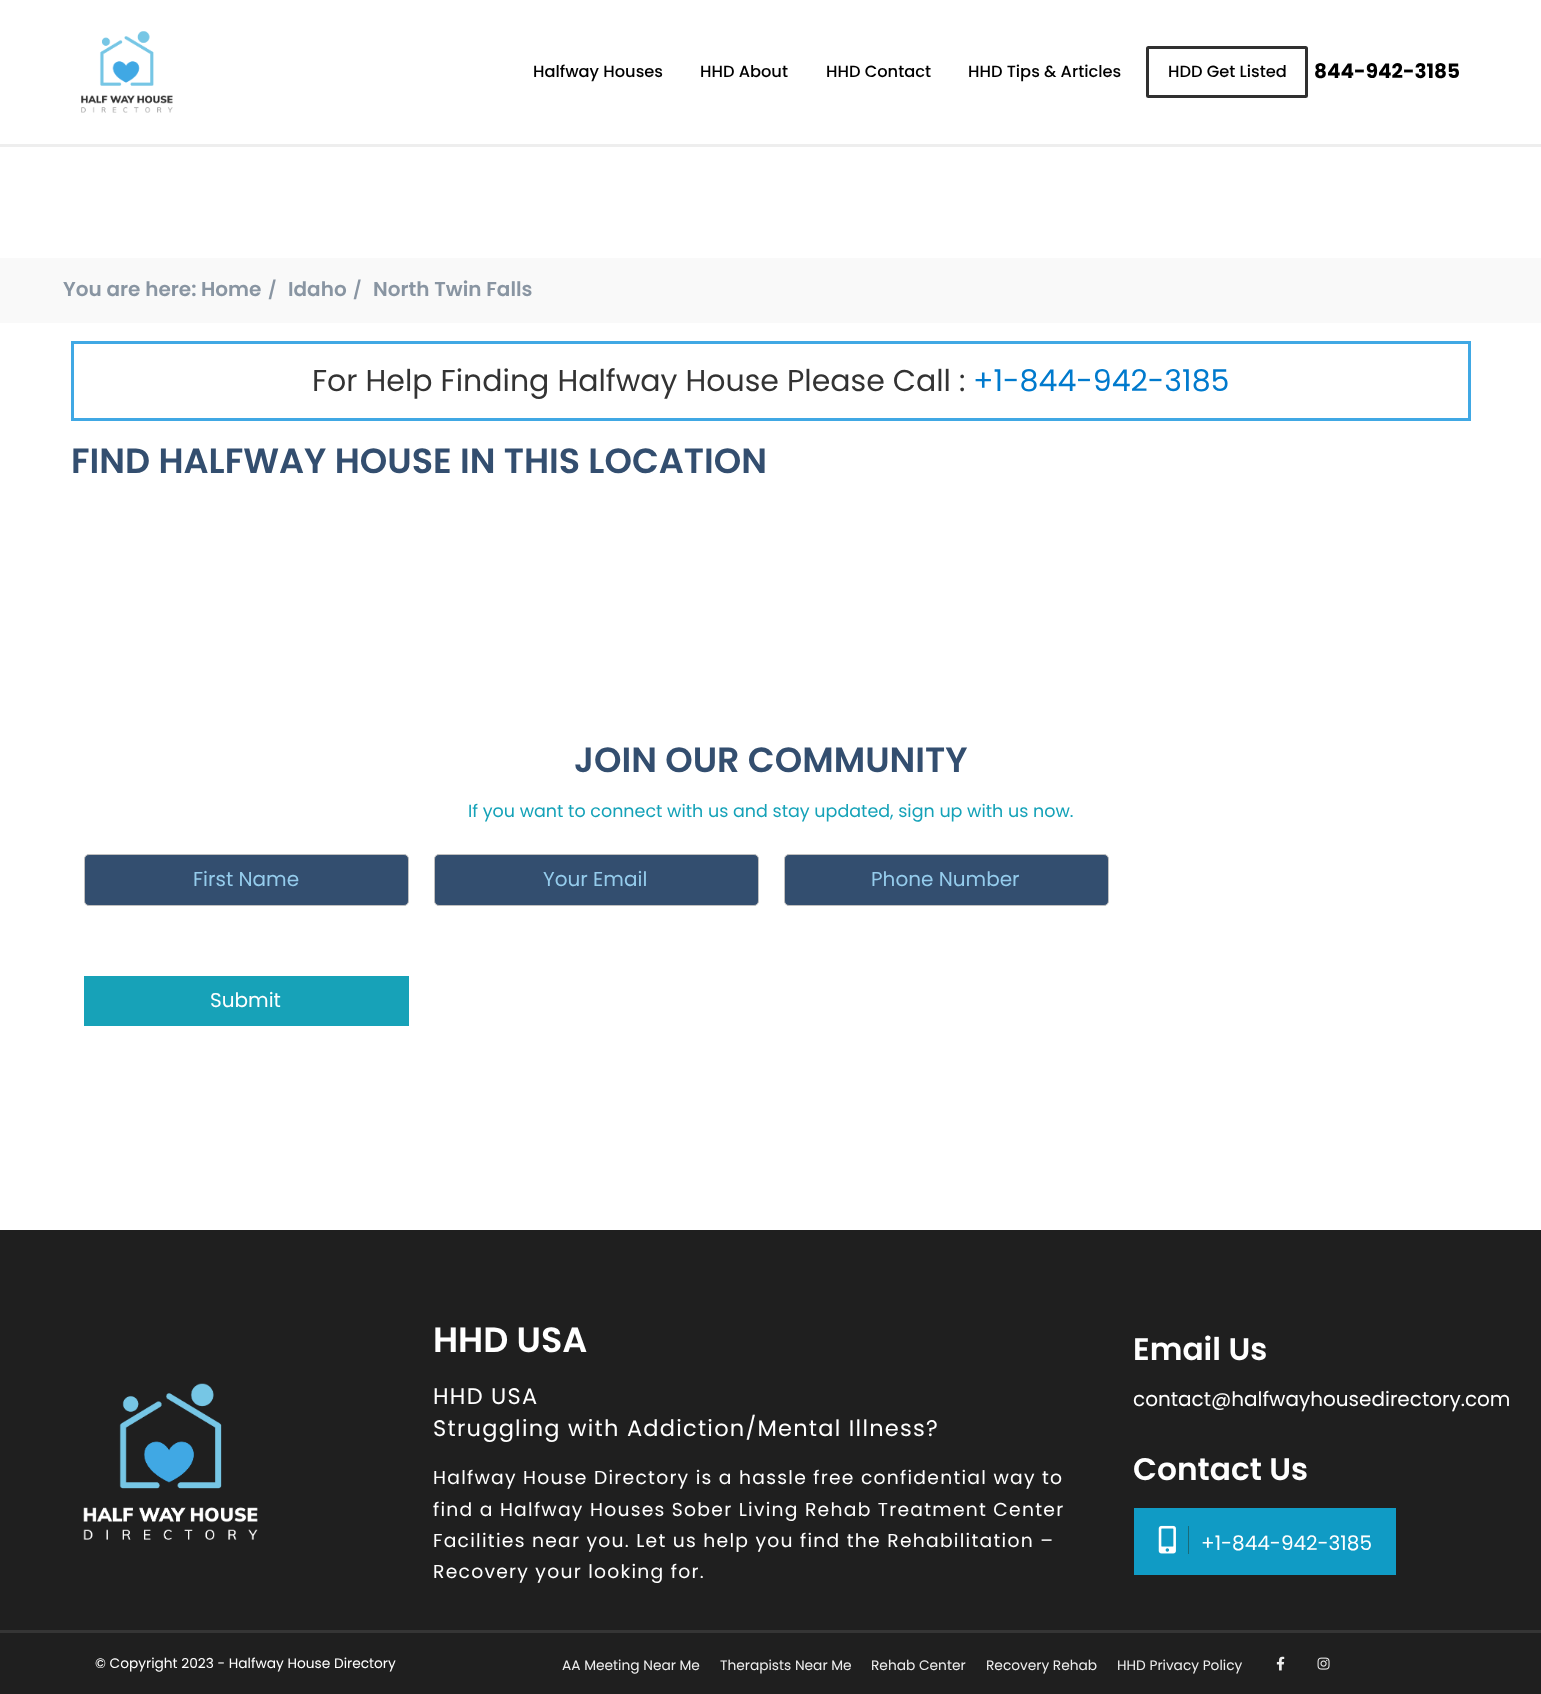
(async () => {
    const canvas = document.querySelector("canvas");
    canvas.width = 1541;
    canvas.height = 1694;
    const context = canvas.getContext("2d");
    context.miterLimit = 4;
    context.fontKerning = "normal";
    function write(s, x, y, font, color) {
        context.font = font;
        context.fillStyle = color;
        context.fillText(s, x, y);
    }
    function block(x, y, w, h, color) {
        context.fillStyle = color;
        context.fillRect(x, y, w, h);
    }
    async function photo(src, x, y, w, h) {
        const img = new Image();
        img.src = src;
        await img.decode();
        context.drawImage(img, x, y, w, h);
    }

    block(0, 0, 1541, 1694, "rgb(255, 255, 255)");
    block(0, 144, 1541, 3, "rgb(238, 238, 238)");
    await photo("media/1.png", 81, 31, 92, 82);
    write("Halfway Houses", 533, 77, "500 16.25px Poppins", "rgb(0, 0, 0)");
    write("HHD About", 700, 77, "500 16.25px Poppins", "rgb(0, 0, 0)");
    write("HHD Contact", 826, 77, "500 16.25px Poppins", "rgb(0, 0, 0)");
    write("HHD Tips & Articles", 968, 77, "500 16.25px Poppins", "rgb(0, 0, 0)");
    context.beginPath();
    context.roundRect(1147.5, 47.5, 159, 49, 1);
    context.strokeStyle = "rgb(48, 48, 48)";
    context.lineWidth = 3;
    context.stroke();
    write("HDD Get Listed", 1168, 77, "500 16.25px Poppins", "rgb(0, 0, 0)");
    write("844-942-3185", 1314, 78, "bold 20px Poppins", "rgb(0, 0, 0)");
    block(0, 258, 1541, 65, "rgb(249, 249, 249)");
    write("You are here:", 63, 296, "600 20px Poppins", "rgb(137, 149, 162)");
    write("Home", 201, 296, "600 20px Poppins", "rgb(137, 149, 162)");
    write("/", 268, 296, "600 17.5px Poppins", "rgb(137, 149, 162)");
    write("Idaho", 288, 296, "600 20px Poppins", "rgb(137, 149, 162)");
    write("/", 353, 296, "600 17.5px Poppins", "rgb(137, 149, 162)");
    write("North Twin Falls", 373, 296, "600 20px Poppins", "rgb(137, 149, 162)");
    context.strokeStyle = "rgb(64, 168, 228)";
    context.strokeRect(72.5, 342.5, 1397, 77);
    write("For Help Finding Halfway House Please Call :", 312, 391, "30px Poppins", "rgb(51, 51, 51)");
    write("+1-844-942-3185", 973, 391, "30px Poppins", "rgb(0, 122, 205)");
    write("FIND HALFWAY HOUSE IN THIS LOCATION", 71, 473, "600 35px Poppins", "rgb(51, 78, 111)");
    write("JOIN OUR COMMUNITY", 574, 772, "600 35px Poppins", "rgb(51, 78, 111)");
    write("If you want to connect with us and stay updated, sign up with us now.", 468, 817, "17.5px Poppins", "rgb(21, 162, 184)");
    context.fillStyle = "rgb(51, 78, 111)";
    context.beginPath();
    context.roundRect(84.5, 854.5, 324, 51, 4.5);
    context.fill();
    context.strokeStyle = "rgb(192, 192, 192)";
    context.lineWidth = 1;
    context.stroke();
    write("First Name", 193, 886, "20px Poppins", "rgb(149, 204, 236)");
    context.fillStyle = "rgb(51, 78, 111)";
    context.beginPath();
    context.roundRect(434.5, 854.5, 324, 51, 4.5);
    context.fill();
    context.stroke();
    write("Your Email", 543, 886, "20px Poppins", "rgb(149, 204, 236)");
    context.fillStyle = "rgb(51, 78, 111)";
    context.beginPath();
    context.roundRect(784.5, 854.5, 324, 51, 4.5);
    context.fill();
    context.stroke();
    write("Phone Number", 871, 886, "20px Poppins", "rgb(149, 204, 236)");
    block(84, 976, 325, 50, "rgb(23, 162, 184)");
    write("Submit", 210, 1007, "20px Poppins", "rgb(255, 255, 255)");
    block(0, 1230, 1541, 464, "rgb(31, 31, 31)");
    await photo("media/2.png", 83, 1383, 175, 157);
    write("HHD USA", 433, 1352, "600 35px Poppins", "rgb(255, 255, 255)");
    context.letterSpacing = "1.25px";
    write("HHD USA", 433, 1404, "22.5px Poppins", "rgb(255, 255, 255)");
    write("Struggling with Addiction/Mental Illness?", 433, 1436, "22.5px Poppins", "rgb(255, 255, 255)");
    write("Halfway House Directory is a hassle free confidential way to", 433, 1484, "18.75px Poppins", "rgb(255, 255, 255)");
    write("find a Halfway Houses Sober Living Rehab Treatment Center", 433, 1516, "18.75px Poppins", "rgb(255, 255, 255)");
    write("Facilities near you. Let us help you find the Rehabilitation –", 433, 1547, "18.75px Poppins", "rgb(255, 255, 255)");
    write("Recovery your looking for.", 433, 1578, "18.75px Poppins", "rgb(255, 255, 255)");
    context.letterSpacing = "0px";
    write("Email Us", 1133, 1360, "600 31.25px Poppins", "rgb(255, 255, 255)");
    write("contact@halfwayhousedirectory.com", 1133, 1406, "20px Poppins", "rgb(255, 255, 255)");
    write("Contact Us", 1133, 1480, "600 31.25px Poppins", "rgb(255, 255, 255)");
    block(1134, 1508, 262, 67, "rgb(16, 155, 197)");
    block(1188, 1526, 1, 28, "rgb(26, 107, 120)");
    await photo("media/3.png", 1158, 1525, 18, 29);
    write("+1-844-942-3185", 1201, 1550, "20px Poppins", "rgb(255, 255, 255)");
    block(0, 1630, 1541, 3, "rgb(53, 53, 53)");
    write("© Copyright 2023 - Halfway House Directory", 95, 1668, "13.75px Poppins", "rgb(255, 255, 255)");
    write("AA Meeting Near Me", 562, 1670, "13.75px Poppins", "rgb(238, 238, 238)");
    write("Therapists Near Me", 720, 1670, "13.75px Poppins", "rgb(238, 238, 238)");
    write("Rehab Center", 871, 1670, "13.75px Poppins", "rgb(238, 238, 238)");
    write("Recovery Rehab", 986, 1670, "13.75px Poppins", "rgb(238, 238, 238)");
    write("HHD Privacy Policy", 1117, 1670, "13.75px Poppins", "rgb(238, 238, 238)");
    await photo("media/4.png", 1276, 1656, 9, 15);
    await photo("media/5.png", 1317, 1657, 13, 13);
})();
